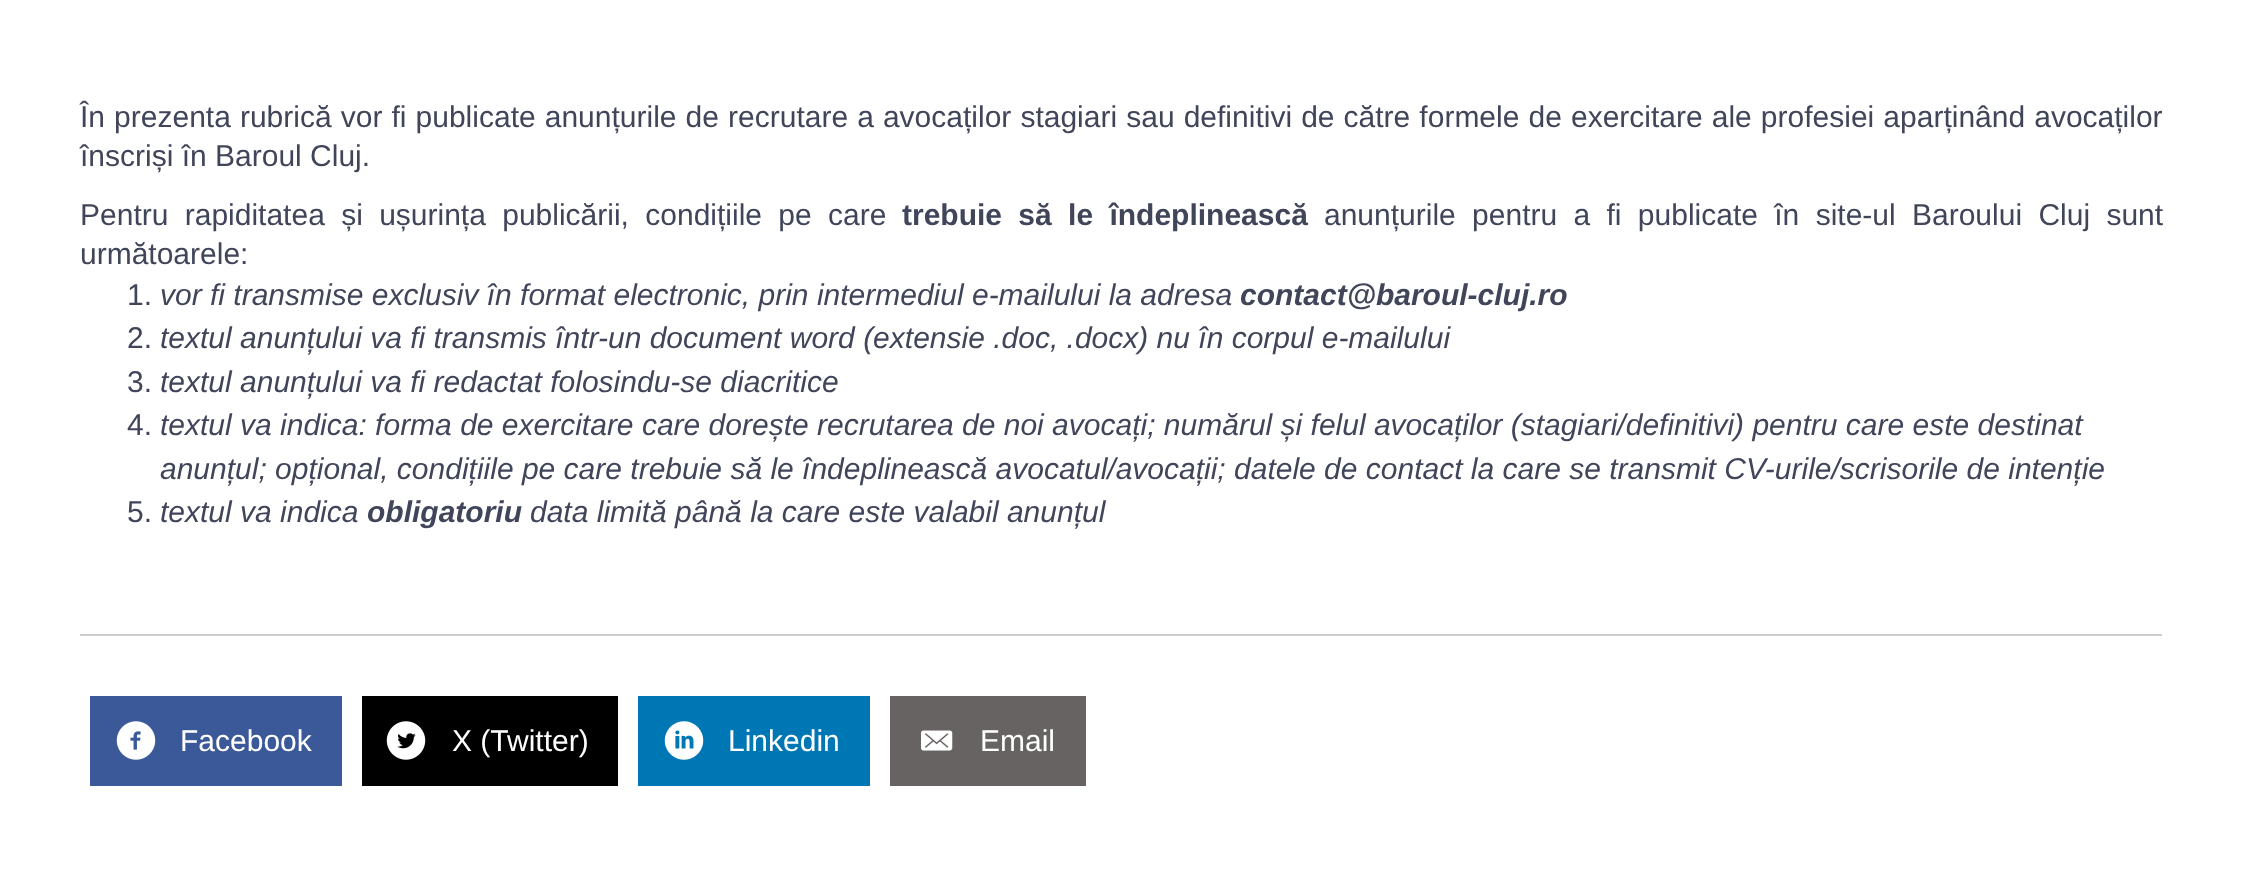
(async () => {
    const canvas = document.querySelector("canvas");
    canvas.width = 2242;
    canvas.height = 894;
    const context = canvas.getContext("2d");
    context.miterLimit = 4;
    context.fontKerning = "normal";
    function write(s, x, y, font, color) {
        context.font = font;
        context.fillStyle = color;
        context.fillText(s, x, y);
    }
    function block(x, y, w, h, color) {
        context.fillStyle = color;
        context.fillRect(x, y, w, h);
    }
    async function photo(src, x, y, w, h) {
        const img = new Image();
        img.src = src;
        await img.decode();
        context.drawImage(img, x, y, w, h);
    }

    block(0, 0, 2242, 894, "rgb(255, 255, 255)");
    context.wordSpacing = "0.75px";
    write("În prezenta rubrică vor fi publicate anunțurile de recrutare a avocaților stagiari sau definitivi de către formele de exercitare ale profesiei aparținând avocaților", 80, 127, "30px Liberation Sans", "rgb(65, 69, 90)");
    context.wordSpacing = "0px";
    write("înscriși în Baroul Cluj.", 80, 166, "30px Liberation Sans", "rgb(65, 69, 90)");
    context.wordSpacing = "8px";
    write("Pentru rapiditatea și ușurința publicării, condițiile pe care", 80, 225, "30px Liberation Sans", "rgb(65, 69, 90)");
    write("trebuie să le îndeplinească", 902, 225, "bold 30px Liberation Sans", "rgb(65, 69, 90)");
    write("anunțurile pentru a fi publicate în site-ul Baroului Cluj sunt", 1324, 225, "30px Liberation Sans", "rgb(65, 69, 90)");
    context.wordSpacing = "0px";
    write("următoarele:", 80, 264, "30px Liberation Sans", "rgb(65, 69, 90)");
    write("1.", 127, 305, "30px Liberation Sans", "rgb(65, 69, 90)");
    write("vor fi transmise exclusiv în format electronic, prin intermediul e-mailului la adresa", 160, 305, "italic 30px Liberation Sans", "rgb(65, 69, 90)");
    write("contact@baroul-cluj.ro", 1240, 305, "italic bold 30px Liberation Sans", "rgb(65, 69, 90)");
    write("2.", 127, 348, "30px Liberation Sans", "rgb(65, 69, 90)");
    write("textul anunțului va fi transmis într-un document word (extensie .doc, .docx) nu în corpul e-mailului", 160, 348, "italic 30px Liberation Sans", "rgb(65, 69, 90)");
    write("3.", 127, 392, "30px Liberation Sans", "rgb(65, 69, 90)");
    write("textul anunțului va fi redactat folosindu-se diacritice", 160, 392, "italic 30px Liberation Sans", "rgb(65, 69, 90)");
    write("4.", 127, 435, "30px Liberation Sans", "rgb(65, 69, 90)");
    write("textul va indica: forma de exercitare care dorește recrutarea de noi avocați; numărul și felul avocaților (stagiari/definitivi) pentru care este destinat", 160, 435, "italic 30px Liberation Sans", "rgb(65, 69, 90)");
    write("anunțul; opțional, condițiile pe care trebuie să le îndeplinească avocatul/avocații; datele de contact la care se transmit CV-urile/scrisorile de intenție", 160, 479, "italic 30px Liberation Sans", "rgb(65, 69, 90)");
    write("5.", 127, 522, "30px Liberation Sans", "rgb(65, 69, 90)");
    write("textul va indica", 160, 522, "italic 30px Liberation Sans", "rgb(65, 69, 90)");
    write("obligatoriu", 367, 522, "italic bold 30px Liberation Sans", "rgb(65, 69, 90)");
    write("data limită până la care este valabil anunțul", 530, 522, "italic 30px Liberation Sans", "rgb(65, 69, 90)");
    block(80, 634, 2082, 2, "rgb(204, 204, 204)");
    block(90, 696, 252, 90, "rgb(59, 89, 152)");
    await photo("media/1.png", 116, 721, 40, 39);
    write("Facebook", 180, 751, "30px Liberation Sans", "rgb(255, 255, 255)");
    block(362, 696, 256, 90, "rgb(0, 0, 0)");
    await photo("media/2.png", 386, 721, 40, 39);
    write("X (Twitter)", 452, 751, "30px Liberation Sans", "rgb(255, 255, 255)");
    block(638, 696, 232, 90, "rgb(0, 119, 181)");
    await photo("media/3.png", 664, 721, 40, 39);
    write("Linkedin", 728, 751, "30px Liberation Sans", "rgb(255, 255, 255)");
    block(890, 696, 196, 90, "rgb(103, 99, 99)");
    await photo("media/4.png", 921, 730, 32, 21);
    write("Email", 980, 751, "30px Liberation Sans", "rgb(255, 255, 255)");
})();
